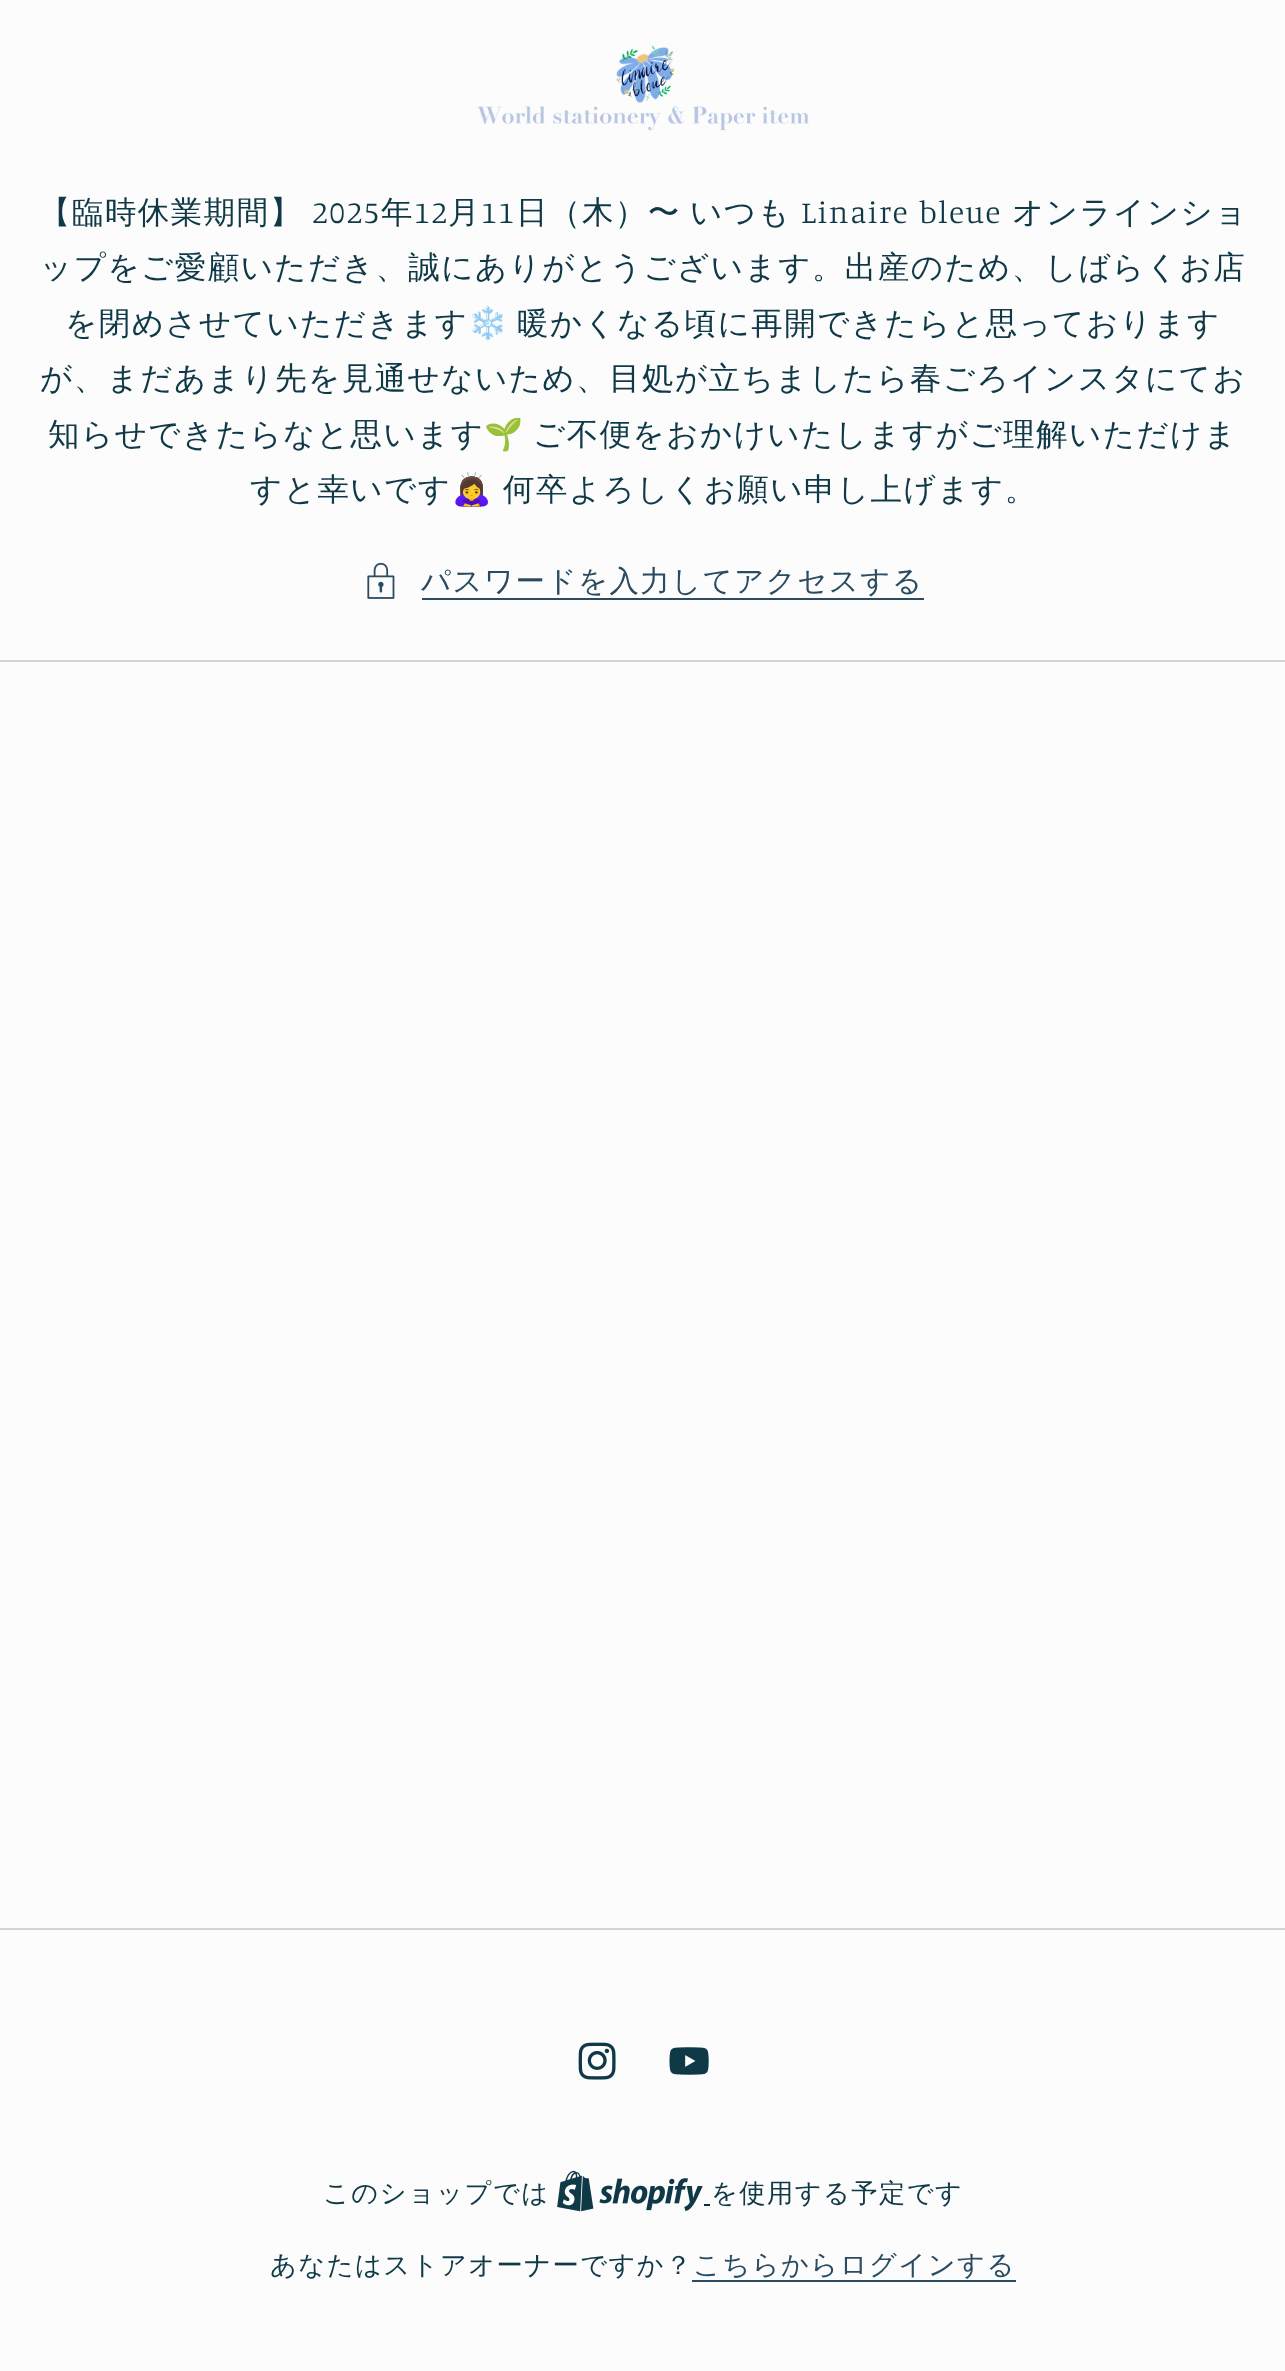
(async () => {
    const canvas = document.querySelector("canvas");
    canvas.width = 1285;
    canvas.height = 2371;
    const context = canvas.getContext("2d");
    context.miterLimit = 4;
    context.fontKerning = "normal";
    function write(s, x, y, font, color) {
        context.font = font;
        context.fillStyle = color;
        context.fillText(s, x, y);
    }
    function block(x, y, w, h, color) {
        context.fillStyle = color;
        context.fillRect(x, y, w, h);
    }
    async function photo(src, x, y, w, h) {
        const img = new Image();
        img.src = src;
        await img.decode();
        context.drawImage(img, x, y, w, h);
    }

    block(0, 0, 1285, 2371, "rgb(252, 252, 252)");
    await photo("media/1.png", 477, 45, 333, 86);
    context.letterSpacing = "1.45px";
    write("【臨時休業期間】", 39, 223, "500 31.5px WenQuanYi Zen Hei", "rgb(16, 57, 72)");
    write("2025", 312, 223, "300 31.5px Manuale", "rgb(16, 57, 72)");
    write("年", 381, 223, "500 31.5px WenQuanYi Zen Hei", "rgb(16, 57, 72)");
    write("12", 414, 223, "300 31.5px Manuale", "rgb(16, 57, 72)");
    write("月", 448, 223, "500 31.5px WenQuanYi Zen Hei", "rgb(16, 57, 72)");
    write("11", 481, 223, "300 31.5px Manuale", "rgb(16, 57, 72)");
    write("日（木）〜", 516, 223, "500 31.5px WenQuanYi Zen Hei", "rgb(16, 57, 72)");
    write("いつも", 690, 223, "500 31.5px WenQuanYi Zen Hei", "rgb(16, 57, 72)");
    context.wordSpacing = "2px";
    write("Linaire bleue", 801, 223, "300 31.5px Manuale", "rgb(16, 57, 72)");
    context.wordSpacing = "0px";
    write("オンラインショ", 1012, 223, "500 31.5px WenQuanYi Zen Hei", "rgb(16, 57, 72)");
    write("ップをご愛顧いただき、誠にありがとうございます。出産のため、しばらくお店", 40, 278, "500 31.5px WenQuanYi Zen Hei", "rgb(16, 57, 72)");
    write("を閉めさせていただきます", 65, 334, "500 31.5px WenQuanYi Zen Hei", "rgb(16, 57, 72)");
    write("❄️", 468, 334, "31.5px Noto Color Emoji", "rgb(16, 57, 72)");
    write("暖かくなる頃に再開できたらと思っております", 517, 334, "500 31.5px WenQuanYi Zen Hei", "rgb(16, 57, 72)");
    write("が、まだあまり先を見通せないため、目処が立ちましたら春ごろインスタにてお", 40, 389, "500 31.5px WenQuanYi Zen Hei", "rgb(16, 57, 72)");
    write("知らせできたらなと思います", 48, 445, "500 31.5px WenQuanYi Zen Hei", "rgb(16, 57, 72)");
    write("🌱", 484, 445, "31.5px Noto Color Emoji", "rgb(16, 57, 72)");
    write("ご不便をおかけいたしますがご理解いただけま", 533, 445, "500 31.5px WenQuanYi Zen Hei", "rgb(16, 57, 72)");
    write("すと幸いです", 250, 500, "500 31.5px WenQuanYi Zen Hei", "rgb(16, 57, 72)");
    write("🙇‍♀️", 452, 500, "31.5px Noto Color Emoji", "rgb(16, 57, 72)");
    write("何卒よろしくお願い申し上げます。", 503, 500, "500 31.5px WenQuanYi Zen Hei", "rgb(16, 57, 72)");
    await photo("media/2.png", 367, 562, 28, 37);
    write("パスワードを入力してアクセスする", 421, 591, "500 29.4px WenQuanYi Zen Hei", "rgb(42, 75, 97)");
    block(422, 598, 502, 2, "rgb(42, 75, 97)");
    block(0, 660, 1285, 2, "rgb(205, 213, 216)");
    block(0, 1928, 1285, 2, "rgb(205, 213, 216)");
    await photo("media/3.png", 578, 2042, 38, 38);
    await photo("media/4.png", 669, 2047, 40, 28);
    write("このショップでは", 323, 2202, "500 26.25px WenQuanYi Zen Hei", "rgb(16, 57, 72)");
    await photo("media/5.png", 557, 2170, 146, 42);
    block(704, 2204, 6, 2, "rgb(5, 44, 70)");
    write("を使用する予定です", 711, 2202, "500 26.25px WenQuanYi Zen Hei", "rgb(16, 57, 72)");
    write("あなたはストアオーナーですか？", 270, 2274, "500 26.25px WenQuanYi Zen Hei", "rgb(16, 57, 72)");
    write("こちらからログインする", 693, 2274, "500 27.25px WenQuanYi Zen Hei", "rgb(42, 75, 97)");
    block(692, 2280, 324, 2, "rgb(42, 75, 97)");
})();
